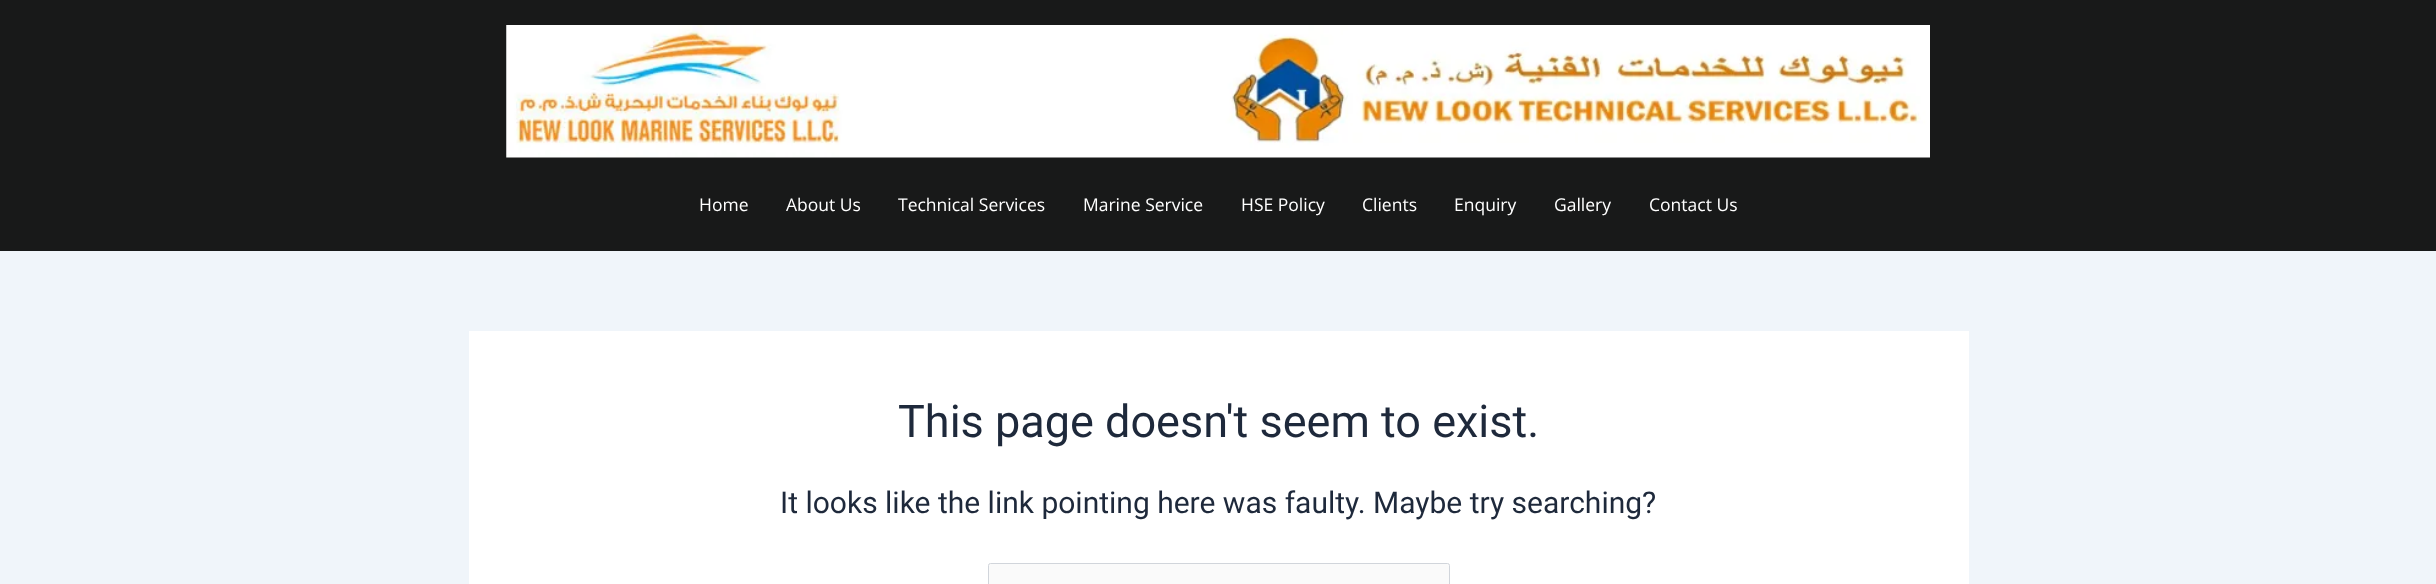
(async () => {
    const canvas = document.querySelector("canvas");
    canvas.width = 2436;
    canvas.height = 584;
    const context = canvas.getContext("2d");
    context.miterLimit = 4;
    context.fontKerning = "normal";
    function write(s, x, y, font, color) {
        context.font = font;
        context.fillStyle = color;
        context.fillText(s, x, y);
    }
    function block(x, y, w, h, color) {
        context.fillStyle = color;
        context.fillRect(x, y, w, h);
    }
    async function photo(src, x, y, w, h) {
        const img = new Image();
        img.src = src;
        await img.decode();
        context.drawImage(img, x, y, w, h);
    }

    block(0, 0, 2436, 584, "rgb(240, 245, 250)");
    block(0, 0, 2436, 251, "rgb(24, 25, 25)");
    await photo("media/1.png", 506, 25, 1424, 133);
    write("Home", 699, 211, "17.5px Open Sans", "rgb(255, 255, 255)");
    write("About Us", 786, 211, "17.5px Open Sans", "rgb(255, 255, 255)");
    write("Technical Services", 898, 211, "17.5px Open Sans", "rgb(255, 255, 255)");
    write("Marine Service", 1083, 211, "17.5px Open Sans", "rgb(255, 255, 255)");
    write("HSE Policy", 1241, 211, "17.5px Open Sans", "rgb(255, 255, 255)");
    write("Clients", 1362, 211, "17.5px Open Sans", "rgb(255, 255, 255)");
    write("Enquiry", 1454, 211, "17.5px Open Sans", "rgb(255, 255, 255)");
    write("Gallery", 1554, 211, "17.5px Open Sans", "rgb(255, 255, 255)");
    write("Contact Us", 1649, 211, "17.5px Open Sans", "rgb(255, 255, 255)");
    block(469, 331, 1500, 253, "rgb(255, 255, 255)");
    write("This page doesn't seem to exist.", 898, 437, "45px Roboto", "rgb(30, 41, 59)");
    write("It looks like the link pointing here was faulty. Maybe try searching?", 780, 513, "30px Roboto", "rgb(30, 41, 59)");
    context.fillStyle = "rgb(250, 250, 250)";
    context.beginPath();
    context.roundRect(988.5, 563.5, 461, 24, 2);
    context.fill();
    context.strokeStyle = "rgb(209, 213, 219)";
    context.stroke();
})();
